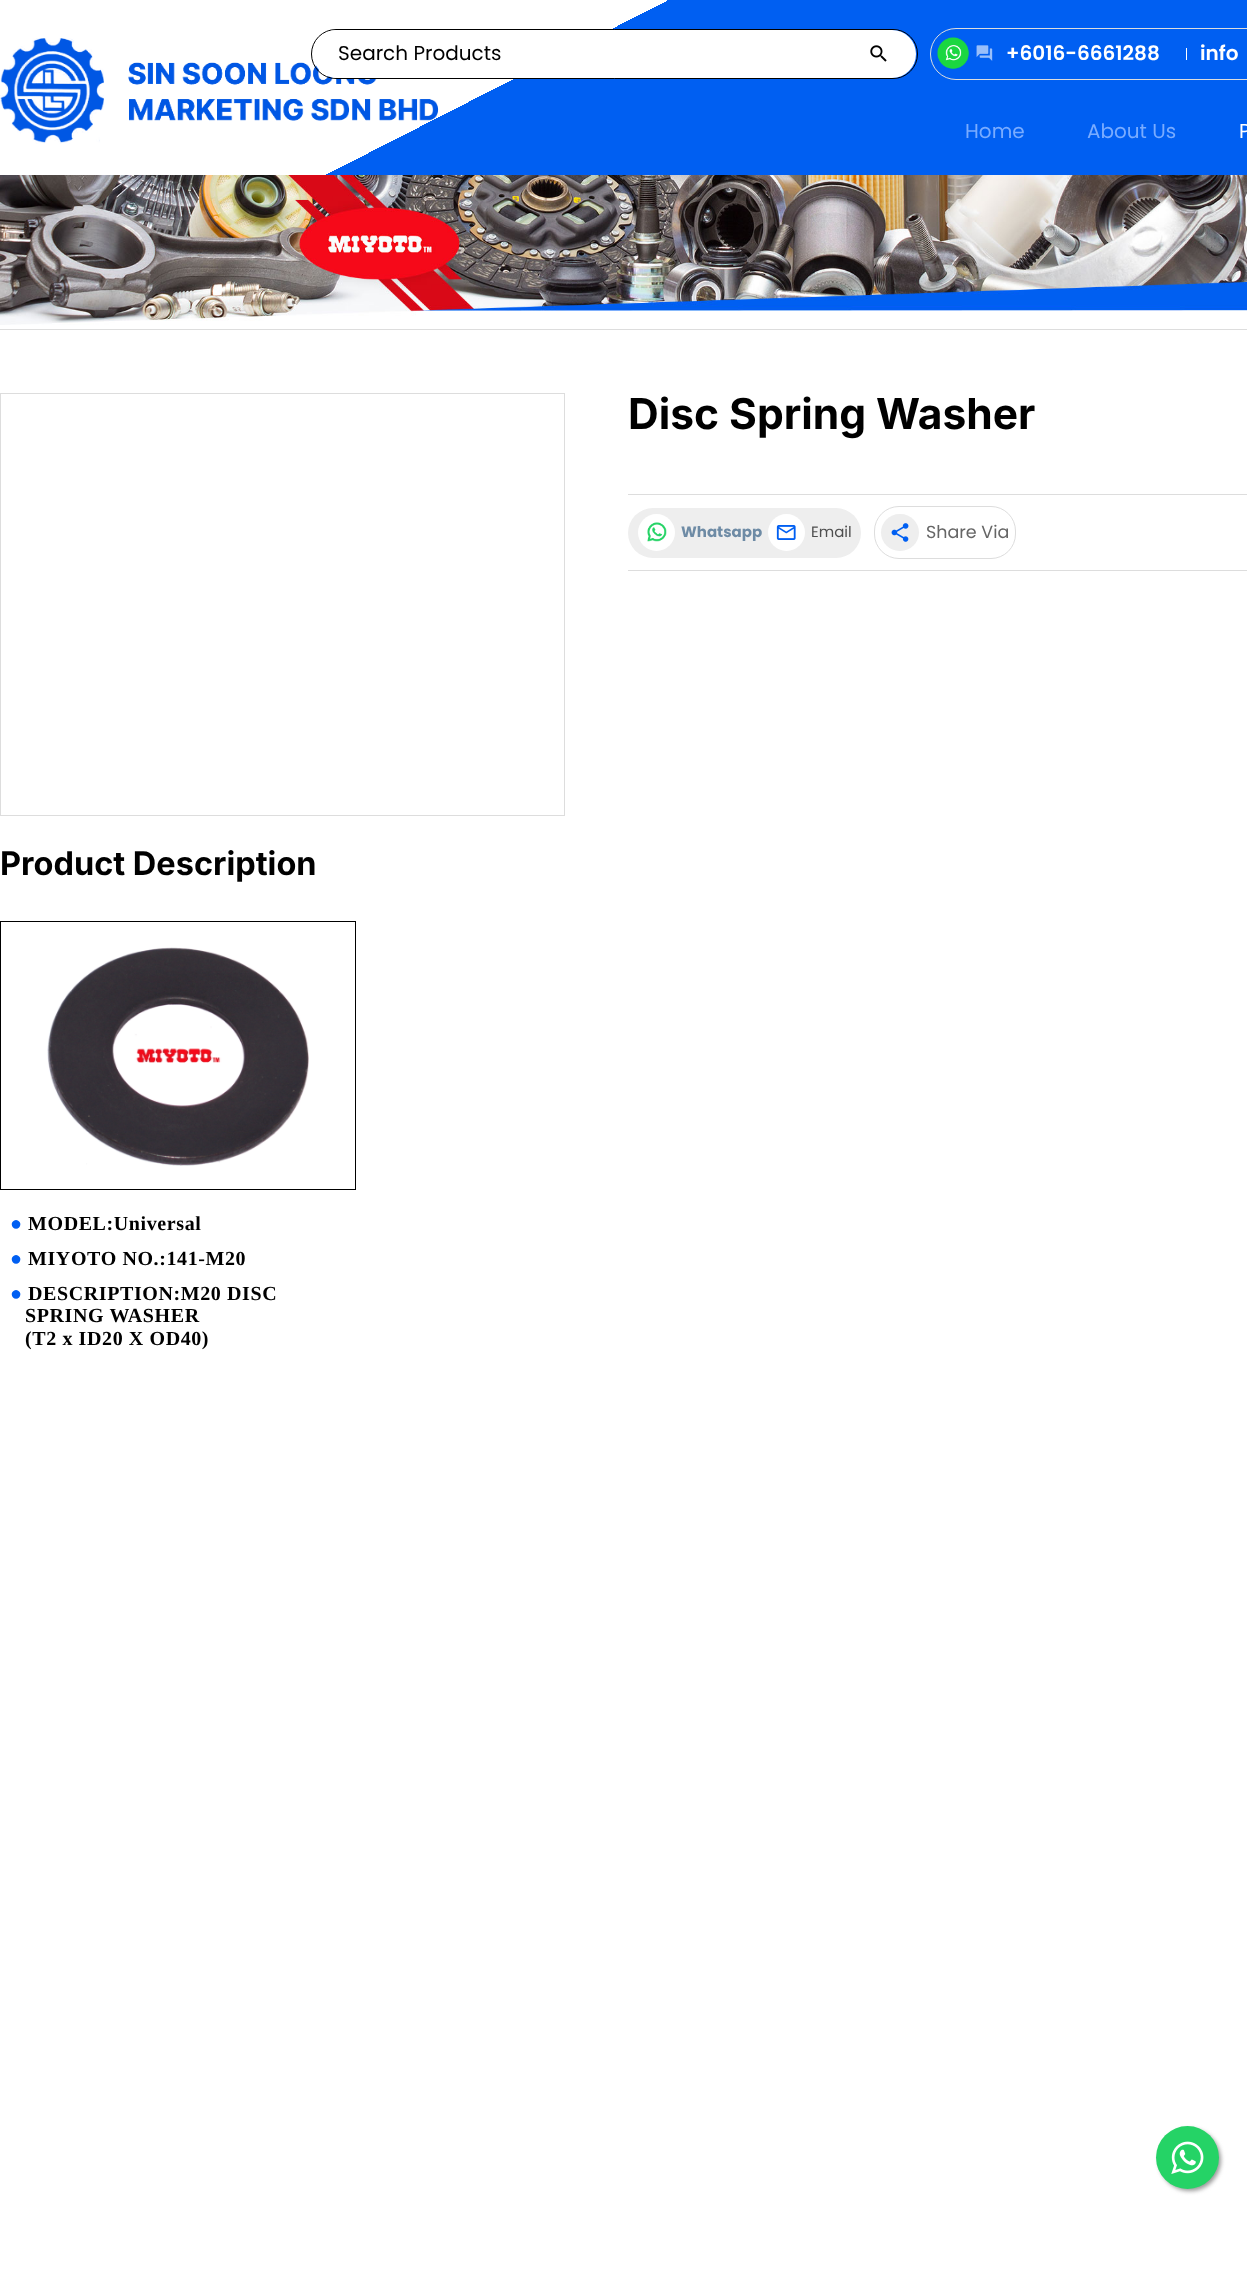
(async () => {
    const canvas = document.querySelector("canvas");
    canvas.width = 1247;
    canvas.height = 2276;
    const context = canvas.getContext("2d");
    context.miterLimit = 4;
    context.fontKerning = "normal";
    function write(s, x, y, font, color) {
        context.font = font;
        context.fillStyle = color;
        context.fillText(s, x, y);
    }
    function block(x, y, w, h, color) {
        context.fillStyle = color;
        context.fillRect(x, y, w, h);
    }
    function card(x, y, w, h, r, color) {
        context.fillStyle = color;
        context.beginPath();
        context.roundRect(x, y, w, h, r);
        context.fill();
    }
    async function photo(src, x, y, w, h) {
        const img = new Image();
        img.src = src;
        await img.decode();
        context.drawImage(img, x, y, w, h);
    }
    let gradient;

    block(0, 0, 1247, 2276, "rgb(255, 255, 255)");
    gradient = context.createLinearGradient(460, -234, 788, 409);
    gradient.addColorStop(0.42, "rgb(255, 255, 255)");
    gradient.addColorStop(0.42, "rgb(0, 95, 242)");
    context.fillStyle = gradient;
    context.fillRect(326, 0, 921, 175);
    await photo("media/1.png", 0, 38, 439, 106);
    context.beginPath();
    context.roundRect(311.5, 29.5, 606, 49, 24.5);
    context.strokeStyle = "rgb(0, 0, 0)";
    context.stroke();
    context.fillStyle = "rgb(255, 255, 255)";
    context.beginPath();
    context.roundRect(313, 30, 543, 48, [24, 0, 0, 24]);
    context.fill();
    write("Search Products", 338, 60, "20px Poppins", "rgb(0, 0, 0)");
    context.fillStyle = "rgb(255, 255, 255)";
    context.beginPath();
    context.roundRect(856, 30, 60, 48, [0, 24, 24, 0]);
    context.fill();
    await photo("media/2.png", 870, 45, 17, 17);
    context.beginPath();
    context.roundRect(930.5, 28.5, 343, 51, 25.5);
    context.strokeStyle = "rgb(221, 221, 221)";
    context.stroke();
    await photo("media/3.png", 937, 37, 32, 32);
    await photo("media/4.png", 976, 45, 17, 16);
    write("+6016-6661288", 1006, 60, "600 20px Poppins", "rgb(255, 255, 255)");
    block(1186, 48, 1, 12, "rgb(255, 255, 255)");
    write("info", 1200, 60, "600 20px Poppins", "rgb(255, 255, 255)");
    write("Home", 965, 138, "20px Poppins", "rgb(121, 172, 255)");
    write("About Us", 1087, 138, "20px Poppins", "rgb(121, 172, 255)");
    write("P", 1239, 138, "20px Poppins", "rgb(255, 255, 255)");
    block(0, 329, 1247, 1, "rgb(221, 221, 221)");
    context.strokeRect(0.5, 393.5, 564, 422);
    write("Disc Spring Washer", 628, 429, "bold 42.5px Inter", "rgb(0, 0, 0)");
    block(628, 494, 619, 1, "rgb(221, 221, 221)");
    block(628, 570, 619, 1, "rgb(221, 221, 221)");
    card(628, 508, 233, 50, 25, "rgb(238, 238, 238)");
    context.fillStyle = "rgb(255, 255, 255)";
    context.beginPath();
    context.arc(656.5, 532.5, 18.5, 0, Math.PI * 2);
    context.fill();
    await photo("media/5.png", 647, 522, 20, 20);
    write("Whatsapp", 681, 537, "bold 15px Poppins", "rgb(110, 139, 165)");
    context.fillStyle = "rgb(255, 255, 255)";
    context.beginPath();
    context.arc(786.5, 532.5, 18.5, 0, Math.PI * 2);
    context.fill();
    await photo("media/6.png", 776, 525, 20, 15);
    write("Email", 811, 537, "15px Poppins", "rgb(78, 78, 78)");
    context.beginPath();
    context.roundRect(874.5, 506.5, 141, 52, 24.5);
    context.stroke();
    card(881, 514, 38, 37, 18.5, "rgb(238, 238, 238)");
    await photo("media/7.png", 891, 523, 18, 19);
    write("Share Via", 926, 538, "17.5px Poppins", "rgb(102, 102, 102)");
    write("Product Description", 0, 875, "bold 32.5px Inter", "rgb(0, 0, 0)");
    context.strokeStyle = "rgb(0, 0, 0)";
    context.strokeRect(0.5, 921.5, 355, 268);
    await photo("media/8.png", 47, 947, 262, 219);
    context.letterSpacing = "0.6px";
    write("●", 10, 1230, "bold 20px Liberation Serif", "rgb(0, 95, 242)");
    write("MODEL:Universal", 28, 1230, "bold 20px Tinos", "rgb(0, 0, 0)");
    write("●", 10, 1265, "bold 20px Liberation Serif", "rgb(0, 95, 242)");
    write("MIYOTO NO.:141-M20", 28, 1265, "bold 20px Tinos", "rgb(0, 0, 0)");
    write("●", 10, 1300, "bold 20px Liberation Serif", "rgb(0, 95, 242)");
    write("DESCRIPTION:M20 DISC", 28, 1300, "bold 20px Tinos", "rgb(0, 0, 0)");
    write("SPRING WASHER", 25, 1322, "bold 20px Tinos", "rgb(0, 0, 0)");
    write("(T2 x ID20 X OD40)", 25, 1345, "bold 20px Tinos", "rgb(0, 0, 0)");
    context.fillStyle = "rgb(153, 153, 153)";
    context.filter = "blur(2px)";
    context.beginPath();
    context.roundRect(1159, 2129, 62, 62, 31);
    context.fill();
    context.filter = "none";
    context.fillStyle = "rgb(37, 211, 102)";
    context.beginPath();
    context.arc(1187.5, 2157.5, 31.5, 0, Math.PI * 2);
    context.fill();
    await photo("media/9.png", 1171, 2141, 33, 33);
    await photo("media/10.png", 0, 175, 1247, 150);
})();
